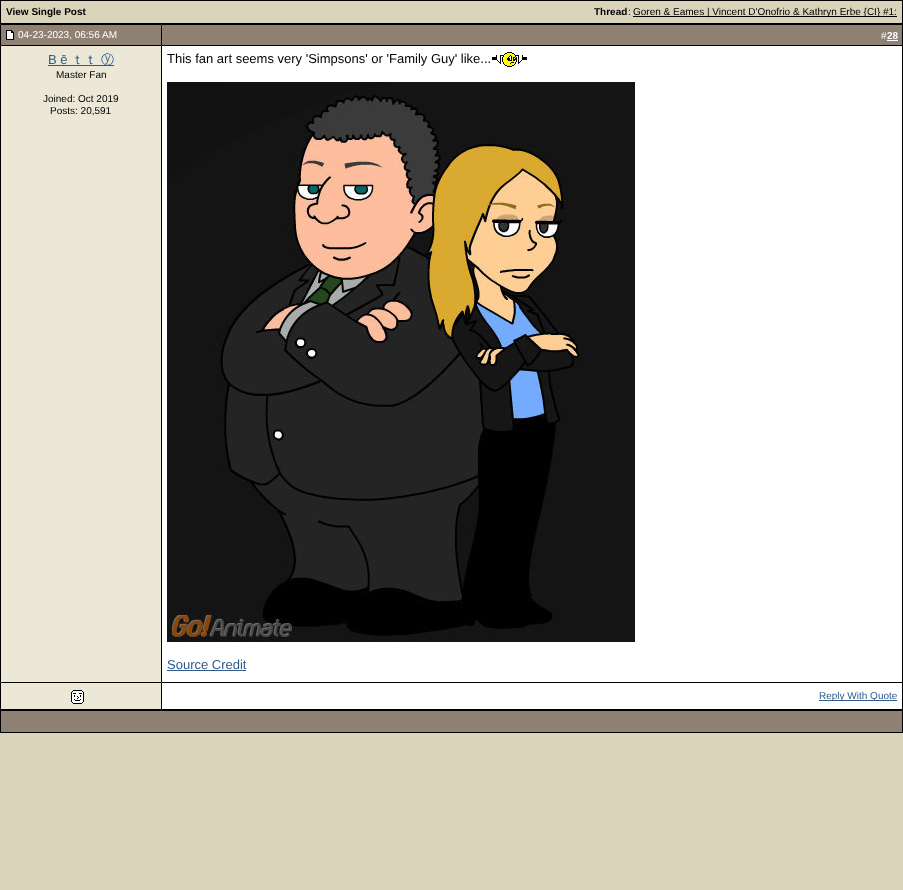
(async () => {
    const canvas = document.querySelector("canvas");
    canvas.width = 903;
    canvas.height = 890;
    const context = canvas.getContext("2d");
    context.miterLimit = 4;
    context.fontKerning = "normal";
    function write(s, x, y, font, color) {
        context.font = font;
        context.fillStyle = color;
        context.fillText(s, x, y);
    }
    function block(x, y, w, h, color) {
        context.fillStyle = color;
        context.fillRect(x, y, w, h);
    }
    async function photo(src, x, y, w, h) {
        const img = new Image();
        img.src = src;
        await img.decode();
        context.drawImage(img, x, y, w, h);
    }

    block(0, 0, 903, 890, "rgb(218, 212, 187)");
    block(0, 0, 903, 24, "rgb(0, 0, 0)");
    block(1, 1, 901, 22, "rgb(218, 212, 187)");
    write("View Single Post", 6, 15, "bold 10px Liberation Sans", "rgb(0, 0, 0)");
    write("Thread", 594, 15, "bold 10px Liberation Sans", "rgb(0, 0, 0)");
    write(":", 628, 15, "10px Liberation Sans", "rgb(0, 0, 0)");
    block(633, 16, 264, 1, "rgb(0, 0, 0)");
    write("Goren & Eames | Vincent D'Onofrio & Kathryn Erbe {CI} #1:", 633, 15, "10px Liberation Sans", "rgb(0, 0, 0)");
    context.fillStyle = "rgb(143, 130, 117)";
    context.beginPath();
    context.rect(0.5, 24.5, 161, 21);
    context.fill();
    context.strokeStyle = "rgb(0, 0, 0)";
    context.stroke();
    await photo("media/1.png", 6, 30, 8, 10);
    write("04-23-2023, 06:56 AM", 18, 38, "10px Liberation Sans", "rgb(255, 255, 255)");
    block(162, 25, 740, 20, "rgb(143, 130, 117)");
    block(162, 24, 741, 1, "rgb(0, 0, 0)");
    block(902, 24, 1, 658, "rgb(0, 0, 0)");
    block(162, 45, 741, 1, "rgb(0, 0, 0)");
    write("#", 881, 39, "10px Liberation Sans", "rgb(255, 255, 255)");
    write("28", 887, 39, "bold 10px Liberation Sans", "rgb(255, 255, 255)");
    block(887, 40, 11, 1, "rgb(255, 255, 255)");
    block(1, 46, 160, 636, "rgb(236, 232, 216)");
    block(161, 46, 1, 636, "rgb(0, 0, 0)");
    block(0, 46, 1, 636, "rgb(0, 0, 0)");
    write("B ē", 48, 64, "13px Liberation Sans", "rgb(47, 90, 138)");
    block(48, 65, 66, 1, "rgb(47, 90, 138)");
    write("ｔｔ ⓨ", 71, 64, "500 13px WenQuanYi Zen Hei", "rgb(47, 90, 138)");
    write("Master Fan", 56, 78, "10px Liberation Sans", "rgb(0, 0, 0)");
    write("Joined: Oct 2019", 43, 102, "10px Liberation Sans", "rgb(0, 0, 0)");
    write("Posts: 20,591", 50, 114, "10px Liberation Sans", "rgb(0, 0, 0)");
    block(162, 46, 740, 636, "rgb(255, 255, 255)");
    write("This fan art seems very 'Simpsons' or 'Family Guy' like...", 167, 63, "13px Liberation Sans", "rgb(0, 0, 0)");
    await photo("media/2.png", 492, 52, 35, 15);
    await photo("media/3.png", 167, 82, 468, 560);
    write("Source Credit", 167, 669, "13px Liberation Sans", "rgb(47, 90, 138)");
    block(167, 670, 79, 1, "rgb(47, 90, 138)");
    context.fillStyle = "rgb(236, 232, 216)";
    context.beginPath();
    context.rect(0.5, 682.5, 161, 27);
    context.fill();
    context.stroke();
    await photo("media/4.png", 71, 690, 13, 14);
    block(162, 683, 740, 26, "rgb(255, 255, 255)");
    block(162, 682, 741, 1, "rgb(0, 0, 0)");
    block(902, 682, 1, 28, "rgb(0, 0, 0)");
    block(162, 709, 741, 1, "rgb(0, 0, 0)");
    block(819, 700, 78, 1, "rgb(47, 90, 138)");
    write("Reply With Quote", 819, 699, "10px Liberation Sans", "rgb(47, 90, 138)");
    block(0, 710, 903, 23, "rgb(0, 0, 0)");
    block(1, 711, 901, 21, "rgb(143, 130, 117)");
})();
